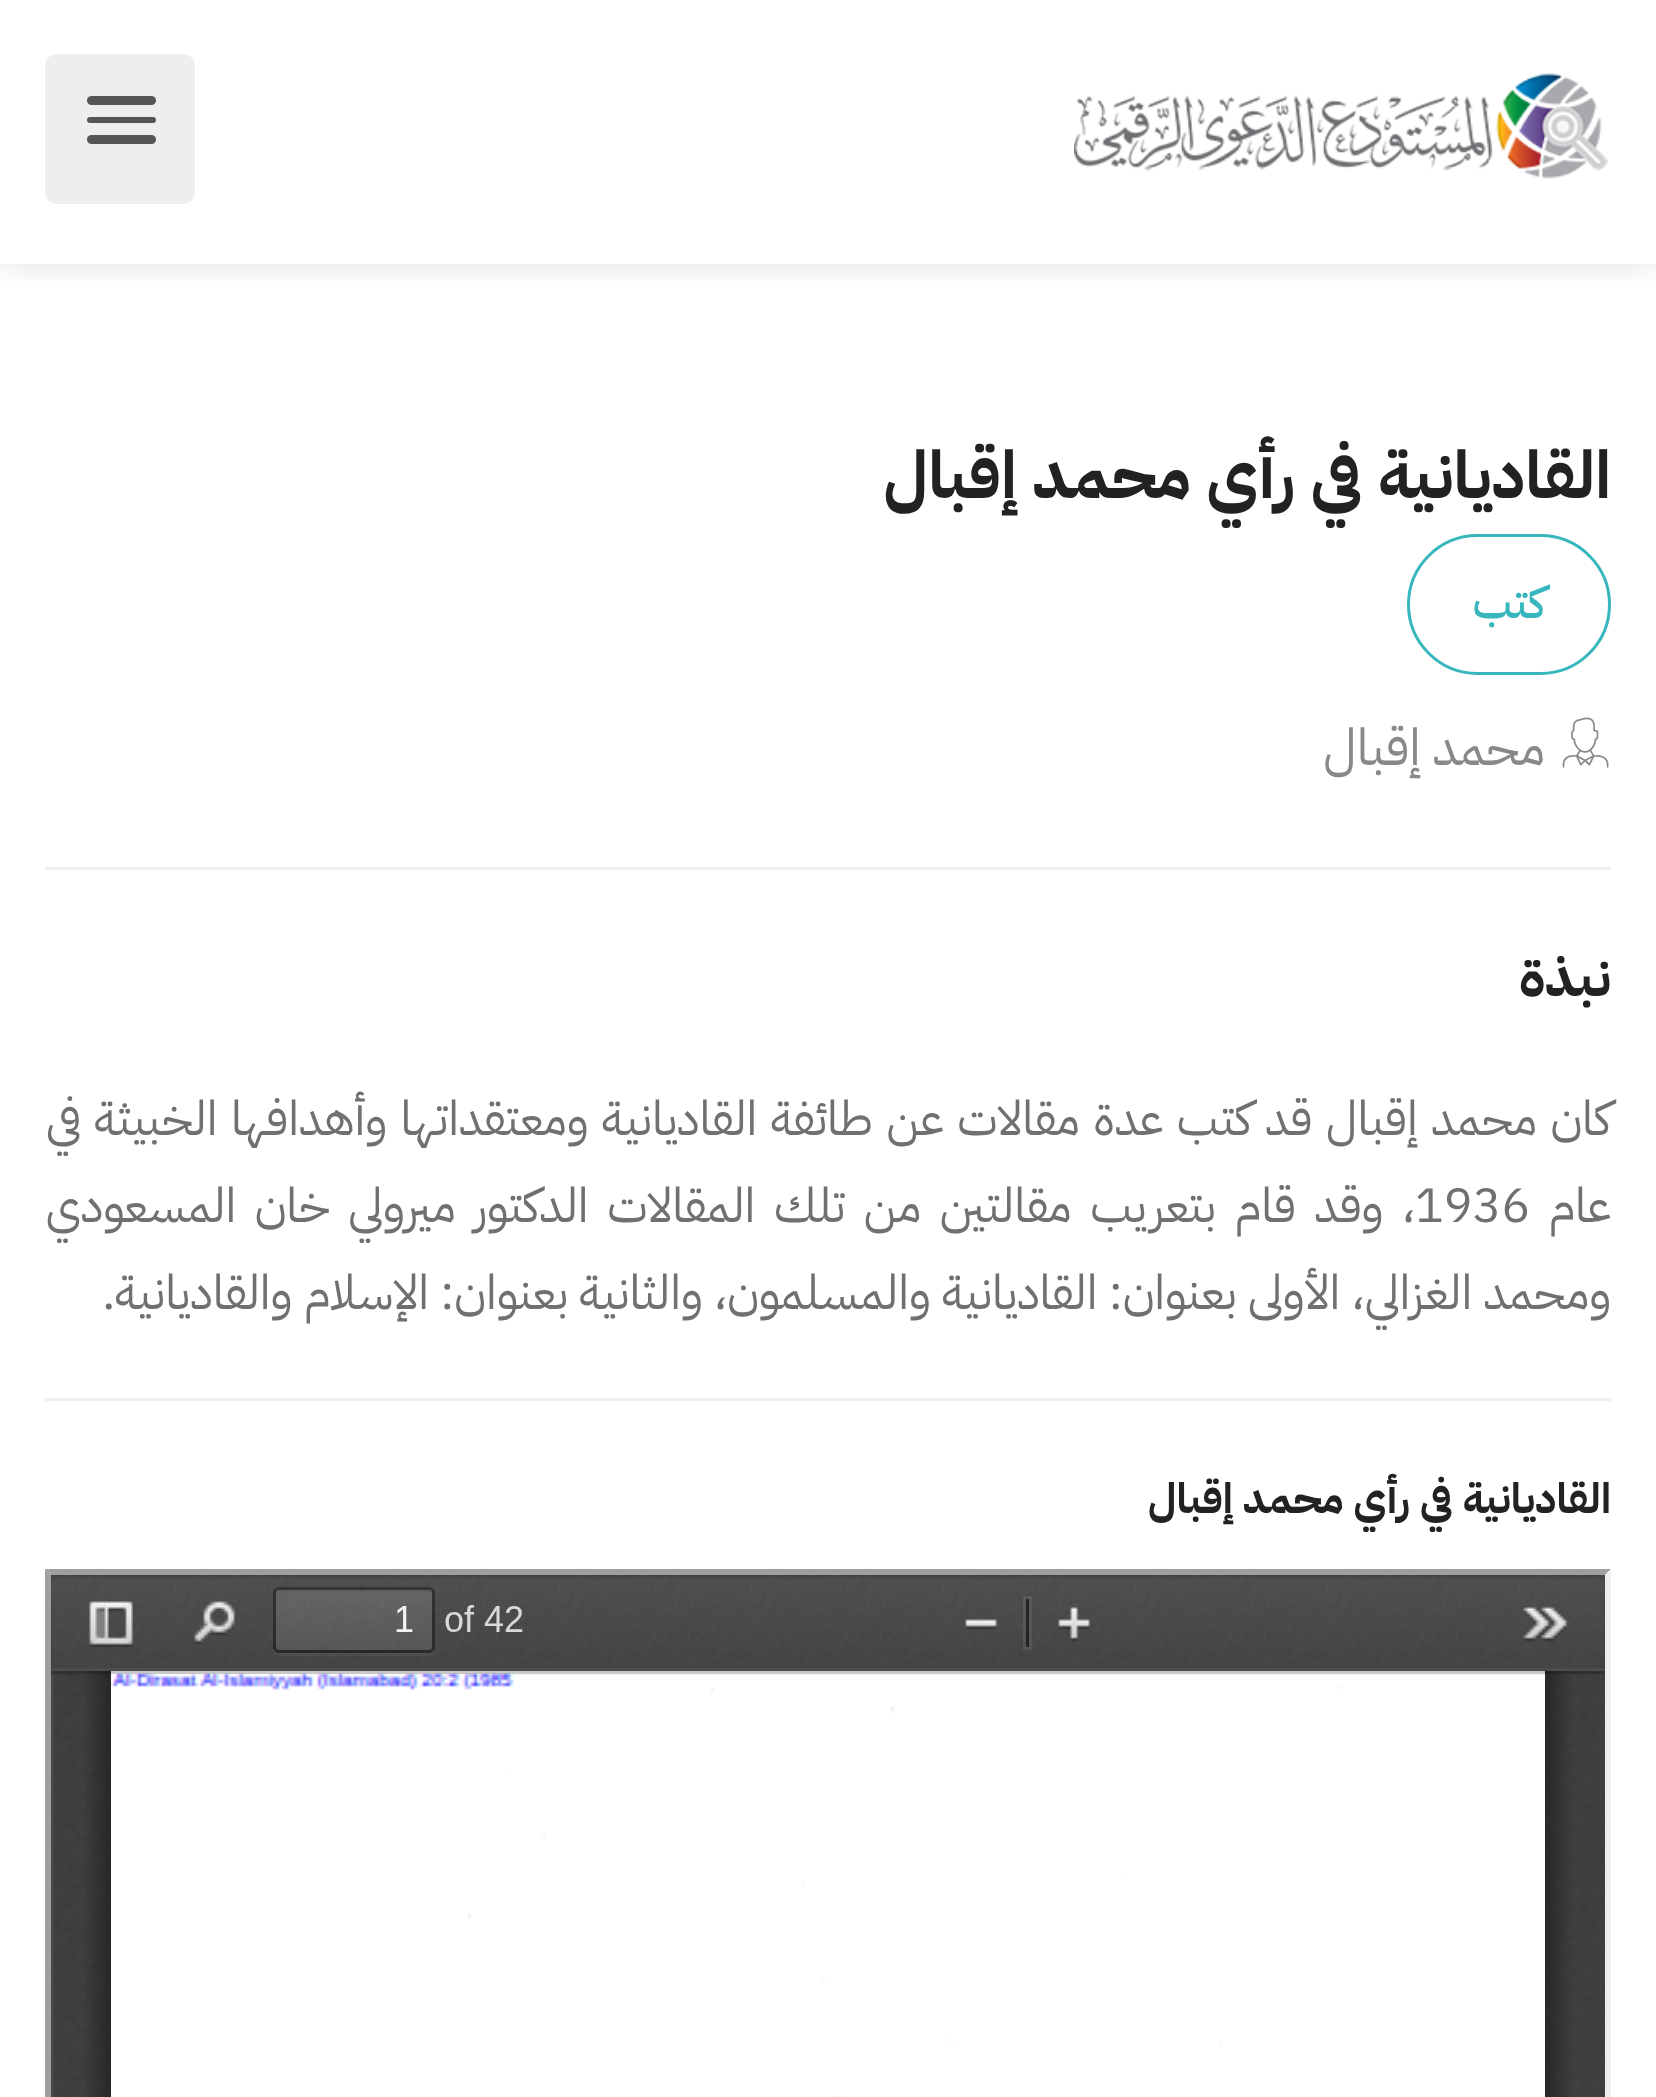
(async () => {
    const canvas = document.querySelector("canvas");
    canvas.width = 1656;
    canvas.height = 2097;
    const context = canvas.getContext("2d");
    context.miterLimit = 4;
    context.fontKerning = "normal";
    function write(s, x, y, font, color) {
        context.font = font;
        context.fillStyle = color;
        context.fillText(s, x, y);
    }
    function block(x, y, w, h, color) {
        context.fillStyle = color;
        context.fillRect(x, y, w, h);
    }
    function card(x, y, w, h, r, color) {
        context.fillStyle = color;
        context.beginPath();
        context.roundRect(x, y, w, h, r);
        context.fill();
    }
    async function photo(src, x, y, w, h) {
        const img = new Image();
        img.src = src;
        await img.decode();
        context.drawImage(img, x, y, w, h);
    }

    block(0, 0, 1656, 2097, "rgb(255, 255, 255)");
    context.save();
    context.beginPath();
    context.rect(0, 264, 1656, 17);
    context.clip();
    context.fillStyle = "rgba(0, 0, 0, 0.12)";
    context.filter = "blur(18px)";
    context.beginPath();
    context.rect(0, 0, 1656, 264);
    context.fill();
    context.filter = "none";
    context.restore();
    await photo("media/1.png", 1074, 73, 534, 106);
    card(45, 54, 150, 150, 12, "rgb(238, 238, 238)");
    card(87, 135, 69, 9, 4.5, "rgb(85, 85, 85)");
    card(87, 96, 69, 9, 4.5, "rgb(85, 85, 85)");
    card(87, 117, 69, 6, 3, "rgb(85, 85, 85)");
    context.direction = "rtl";
    write("القاديانية في رأي محمد إقبال", 1611, 498, "bold 66px IBM Plex Sans Arabic", "rgb(34, 34, 34)");
    context.beginPath();
    context.roundRect(1408.5, 535.5, 201, 138, 69);
    context.strokeStyle = "rgb(55, 182, 189)";
    context.lineWidth = 3;
    context.stroke();
    write("كتب", 1545, 618, "500 45px IBM Plex Sans Arabic", "rgb(55, 182, 189)");
    await photo("media/2.png", 1562, 717, 47, 51);
    write("محمد إقبال", 1545, 765, "51px IBM Plex Sans Arabic", "rgb(136, 136, 136)");
    block(45, 867, 1566, 3, "rgb(238, 238, 238)");
    write("نبذة", 1611, 996, "bold 54px IBM Plex Sans Arabic", "rgb(34, 34, 34)");
    context.wordSpacing = "2.25px";
    write("كان محمد إقبال قد كتب عدة مقالات عن طائفة القاديانية ومعتقداتها وأهدافها الخبيثة في", 1611, 1135, "48px IBM Plex Sans Arabic", "rgb(112, 112, 112)");
    context.wordSpacing = "0px";
    write("عام", 1611, 1222, "48px IBM Plex Sans Arabic", "rgb(112, 112, 112)");
    context.direction = "ltr";
    write("1936", 1415, 1222, "48px IBM Plex Sans Arabic", "rgb(112, 112, 112)");
    context.wordSpacing = "7.25px";
    context.direction = "rtl";
    write("، وقد قام بتعريب مقالتين من تلك المقالات الدكتور ميرولي خان المسعودي", 1415, 1222, "48px IBM Plex Sans Arabic", "rgb(112, 112, 112)");
    context.wordSpacing = "0px";
    write("ومحمد الغزالي، الأولى بعنوان: القاديانية والمسلمون، والثانية بعنوان: الإسلام والقاديانية.", 1611, 1309, "48px IBM Plex Sans Arabic", "rgb(112, 112, 112)");
    block(45, 1398, 1566, 3, "rgb(238, 238, 238)");
    write("القاديانية في رأي محمد إقبال", 1611, 1513, "bold 42px IBM Plex Sans Arabic", "rgb(34, 34, 34)");
    context.fillStyle = "rgb(159, 159, 159)";
    context.beginPath();
    context.moveTo(45, 1569);
    context.lineTo(1611, 1569);
    context.lineTo(1605, 1575);
    context.lineTo(51, 1575);
    context.closePath();
    context.fill();
    context.fillStyle = "rgb(238, 238, 238)";
    context.beginPath();
    context.moveTo(1611, 1569);
    context.lineTo(1611, 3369);
    context.lineTo(1605, 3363);
    context.lineTo(1605, 1575);
    context.closePath();
    context.fill();
    await photo("media/3.png", 51, 1575, 1554, 522);
    context.fillStyle = "rgb(159, 159, 159)";
    context.beginPath();
    context.moveTo(45, 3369);
    context.lineTo(45, 1569);
    context.lineTo(51, 1575);
    context.lineTo(51, 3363);
    context.closePath();
    context.fill();
})();
